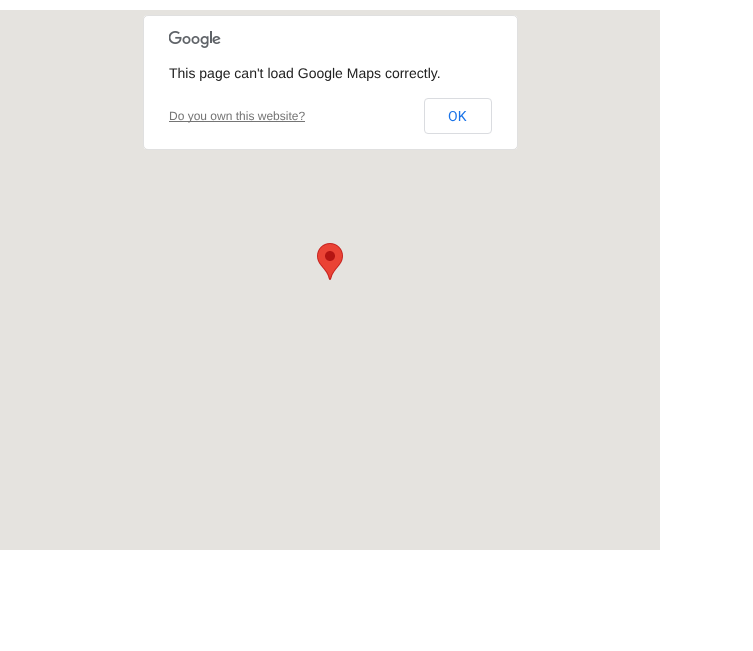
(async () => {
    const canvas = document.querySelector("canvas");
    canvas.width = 753;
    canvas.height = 651;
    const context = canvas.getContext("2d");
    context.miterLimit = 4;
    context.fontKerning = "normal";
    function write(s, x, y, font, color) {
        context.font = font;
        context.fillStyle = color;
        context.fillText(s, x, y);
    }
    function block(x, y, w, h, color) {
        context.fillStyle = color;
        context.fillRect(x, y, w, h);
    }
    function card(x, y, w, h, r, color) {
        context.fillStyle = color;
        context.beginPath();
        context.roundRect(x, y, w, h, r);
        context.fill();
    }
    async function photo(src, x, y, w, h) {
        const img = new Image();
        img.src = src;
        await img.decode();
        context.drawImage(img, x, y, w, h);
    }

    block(0, 0, 753, 651, "rgb(255, 255, 255)");
    block(0, 10, 660, 540, "rgb(229, 227, 223)");
    await photo("media/1.png", 317, 243, 26, 37);
    card(143, 15, 375, 135, 5, "rgb(255, 255, 255)");
    context.beginPath();
    context.roundRect(143.5, 15.5, 374, 134, 4.5);
    context.strokeStyle = "rgba(0, 0, 0, 0.12)";
    context.stroke();
    await photo("media/2.png", 169, 31, 52, 17);
    write("This page can't load Google Maps correctly.", 169, 78, "14px Liberation Sans", "rgb(33, 33, 33)");
    block(169, 121, 136, 1, "rgb(117, 117, 117)");
    write("Do you own this website?", 169, 120, "12px Liberation Sans", "rgb(117, 117, 117)");
    context.beginPath();
    context.roundRect(424.5, 98.5, 67, 35, 3.5);
    context.strokeStyle = "rgb(218, 220, 224)";
    context.stroke();
    write("OK", 448, 121, "14px Roboto", "rgb(26, 115, 232)");
})();
